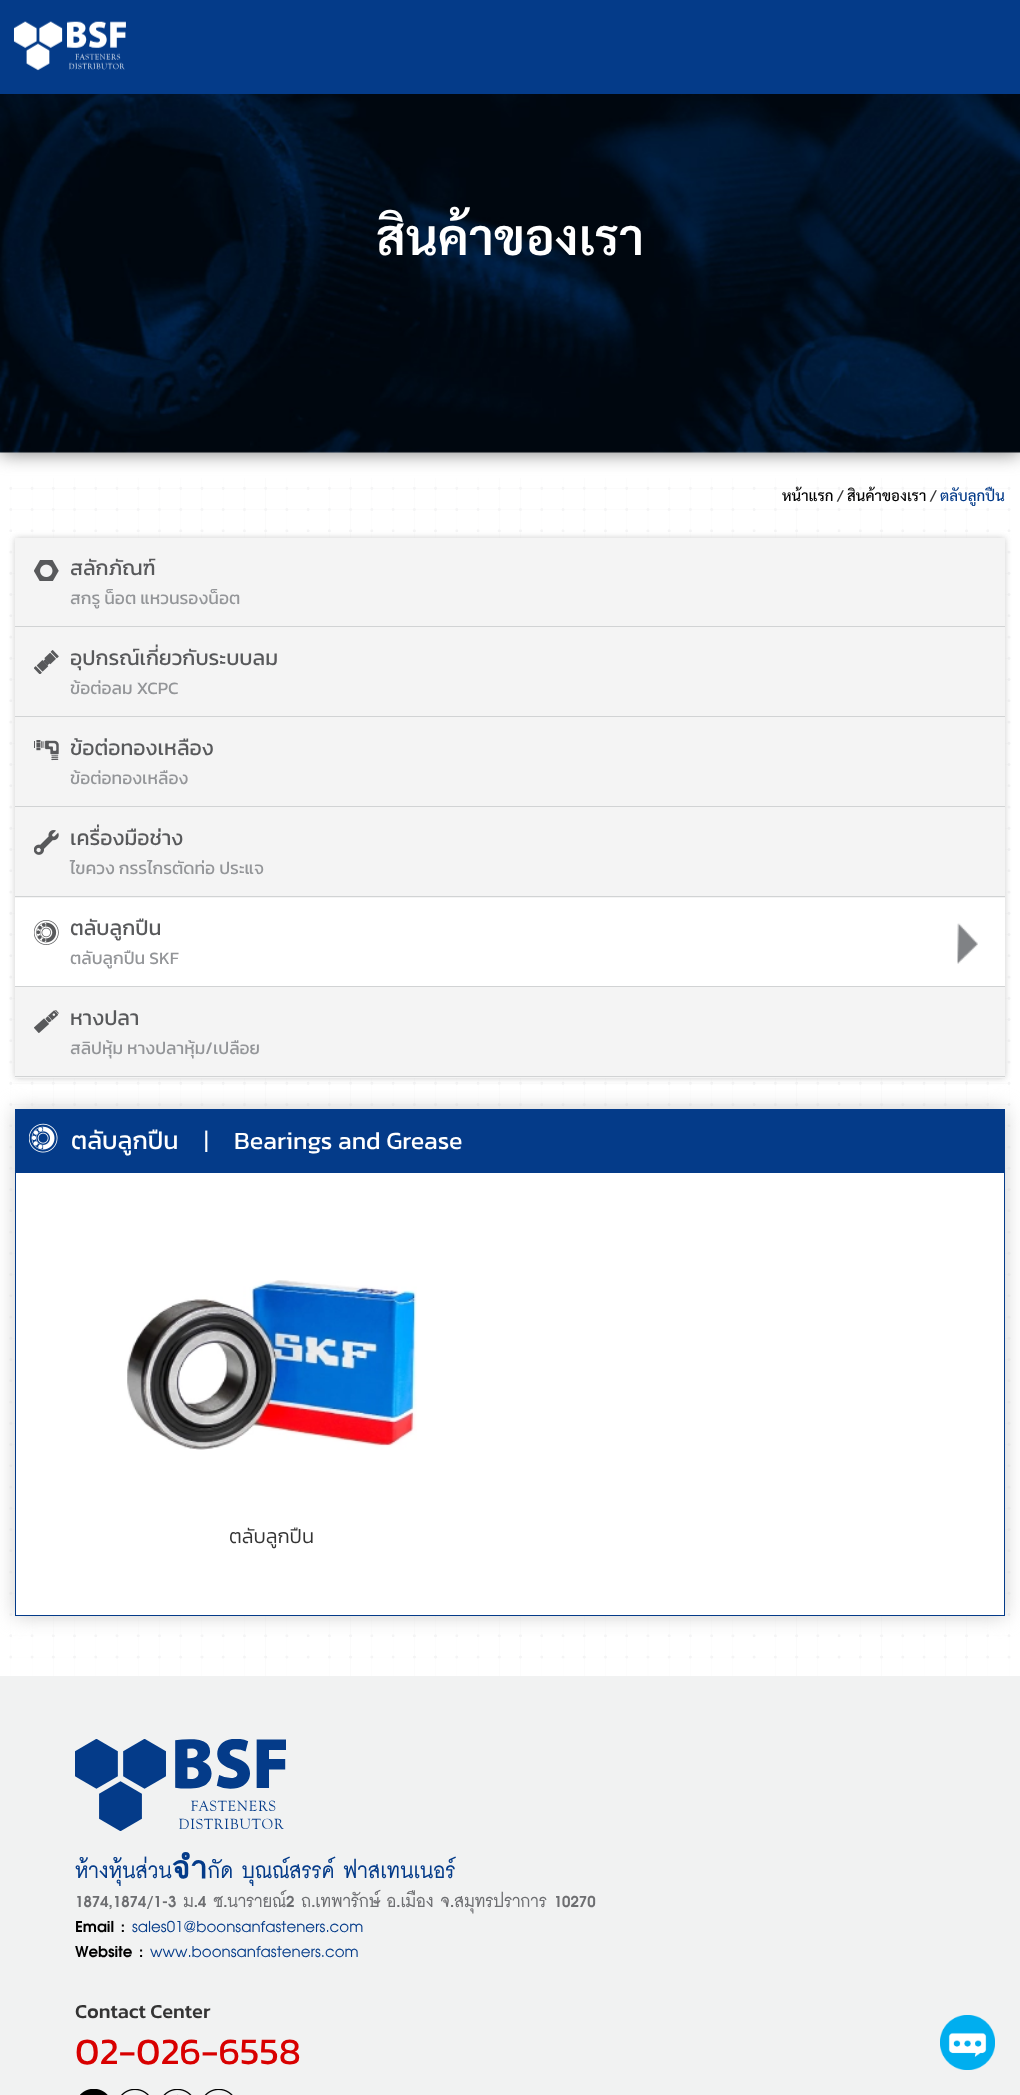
(async () => {
    const canvas = document.querySelector("canvas");
    canvas.width = 1020;
    canvas.height = 2095;
    const context = canvas.getContext("2d");
    context.miterLimit = 4;
    context.fontKerning = "normal";
    function write(s, x, y, font, color) {
        context.font = font;
        context.fillStyle = color;
        context.fillText(s, x, y);
    }
    function block(x, y, w, h, color) {
        context.fillStyle = color;
        context.fillRect(x, y, w, h);
    }
    async function photo(src, x, y, w, h) {
        const img = new Image();
        img.src = src;
        await img.decode();
        context.drawImage(img, x, y, w, h);
    }

    block(0, 0, 1020, 2095, "rgb(255, 255, 255)");
    await photo("media/3.png", 9, 478, 1002, 1198);
    context.fillStyle = "rgb(125, 125, 125)";
    context.filter = "blur(9.5px)";
    context.beginPath();
    context.rect(0, 78, 1020, 375);
    context.fill();
    context.filter = "none";
    block(0, 0, 1020, 94, "rgb(4, 59, 137)");
    await photo("media/1.png", 13, 21, 113, 50);
    await photo("media/2.png", 0, 94, 1020, 359);
    write("สินค้าของเรา", 376, 255, "600 50px Sarabun", "rgb(255, 255, 255)");
    write("หน้าแรก", 782, 501, "500 15px Sarabun", "rgb(0, 0, 0)");
    write("/", 837, 501, "500 15px Sarabun", "rgb(52, 52, 52)");
    write("สินค้าของเรา", 847, 501, "500 15px Sarabun", "rgb(0, 0, 0)");
    write("ตลับลูกปืน", 940, 501, "500 15px Sarabun", "rgb(4, 59, 137)");
    write("/", 930, 501, "500 15px Sarabun", "rgb(52, 52, 52)");
    context.fillStyle = "rgb(204, 204, 204)";
    context.filter = "blur(3px)";
    context.beginPath();
    context.rect(15, 538, 990, 540);
    context.fill();
    context.filter = "none";
    block(15, 538, 990, 540, "rgb(244, 244, 244)");
    block(15, 626, 990, 1, "rgb(209, 211, 212)");
    await photo("media/4.png", 34, 560, 25, 21);
    write("สลักภัณฑ์", 70, 575, "21.25px Kanit", "rgb(88, 89, 91)");
    write("สกรู น็อต แหวนรองน็อต", 70, 604, "17.5px Kanit", "rgb(147, 149, 152)");
    block(15, 716, 990, 1, "rgb(209, 211, 212)");
    await photo("media/5.png", 34, 650, 25, 24);
    write("อุปกรณ์เกี่ยวกับระบบลม", 70, 665, "21.25px Kanit", "rgb(88, 89, 91)");
    write("ข้อต่อลม XCPC", 70, 694, "17.5px Kanit", "rgb(147, 149, 152)");
    block(15, 806, 990, 1, "rgb(209, 211, 212)");
    await photo("media/6.png", 34, 740, 25, 21);
    write("ข้อต่อทองเหลือง", 70, 755, "21.25px Kanit", "rgb(88, 89, 91)");
    write("ข้อต่อทองเหลือง", 70, 784, "17.5px Kanit", "rgb(147, 149, 152)");
    block(15, 896, 990, 1, "rgb(209, 211, 212)");
    await photo("media/7.png", 34, 830, 25, 25);
    write("เครื่องมือช่าง", 70, 845, "21.25px Kanit", "rgb(88, 89, 91)");
    write("ไขควง กรรไกรตัดท่อ ประแจ", 70, 874, "17.5px Kanit", "rgb(147, 149, 152)");
    block(15, 986, 990, 1, "rgb(209, 211, 212)");
    block(15, 898, 990, 88, "rgb(255, 255, 255)");
    await photo("media/8.png", 957, 923, 21, 41);
    await photo("media/9.png", 34, 920, 25, 25);
    write("ตลับลูกปืน", 70, 935, "21.25px Kanit", "rgb(88, 89, 91)");
    write("ตลับลูกปืน SKF", 70, 964, "17.5px Kanit", "rgb(147, 149, 152)");
    block(15, 1076, 990, 1, "rgb(209, 211, 212)");
    await photo("media/10.png", 34, 1010, 25, 23);
    write("หางปลา", 70, 1025, "21.25px Kanit", "rgb(88, 89, 91)");
    write("สลิปหุ้ม หางปลาหุ้ม/เปลือย", 70, 1054, "17.5px Kanit", "rgb(147, 149, 152)");
    context.fillStyle = "rgb(204, 204, 204)";
    context.filter = "blur(9.5px)";
    context.beginPath();
    context.rect(15, 1109, 990, 507);
    context.fill();
    context.filter = "none";
    block(16, 1173, 988, 442, "rgb(255, 255, 255)");
    context.strokeStyle = "rgb(4, 59, 137)";
    context.strokeRect(15.5, 1109.5, 989, 506);
    block(16, 1110, 988, 63, "rgb(4, 59, 137)");
    await photo("media/11.png", 29, 1123, 29, 30);
    write("ตลับลูกปืน", 71, 1149, "25px Kanit", "rgb(255, 255, 255)");
    write("|", 204, 1149, "300 25px Kanit", "rgb(255, 255, 255)");
    write("Bearings and Grease", 234, 1149, "25px Kanit", "rgb(255, 255, 255)");
    await photo("media/12.png", 127, 1280, 290, 170);
    write("ตลับลูกปืน", 229, 1543, "300 20px Kanit", "rgb(52, 52, 52)");
    block(0, 1676, 1020, 419, "rgb(241, 242, 242)");
    await photo("media/13.png", 75, 1739, 211, 92);
    write("ห้างหุ้นส่วนจำกัด บุณณ์สรรค์ ฟาสเทนเนอร์", 75, 1878, "bold 31.25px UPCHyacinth", "rgb(4, 59, 137)");
    write("1874,1874/1-3 ม.4 ซ.นารายณ์2 ถ.เทพารักษ์ อ.เมือง จ.สมุทรปราการ 10270", 75, 1907, "bold 25px UPCHyacinth", "rgb(109, 110, 113)");
    write("Email :", 75, 1932, "bold 25px UPCHyacinth", "rgb(0, 0, 0)");
    write("sales01@boonsanfasteners.com", 132, 1932, "25px UPCHyacinth", "rgb(4, 59, 137)");
    write("Website :", 75, 1957, "bold 25px UPCHyacinth", "rgb(0, 0, 0)");
    write("www.boonsanfasteners.com", 150, 1957, "25px UPCHyacinth", "rgb(4, 59, 137)");
    write("Contact Center", 75, 2018, "500 20px Kanit", "rgb(52, 52, 52)");
    write("02-026-6558", 75, 2064, "37.5px Kanit", "rgb(216, 0, 0)");
    await photo("media/14.png", 80, 2089, 28, 6);
    await photo("media/15.png", 121, 2089, 28, 6);
    await photo("media/16.png", 163, 2089, 29, 6);
    await photo("media/17.png", 204, 2089, 29, 6);
    await photo("media/18.png", 940, 2015, 55, 55);
})();
